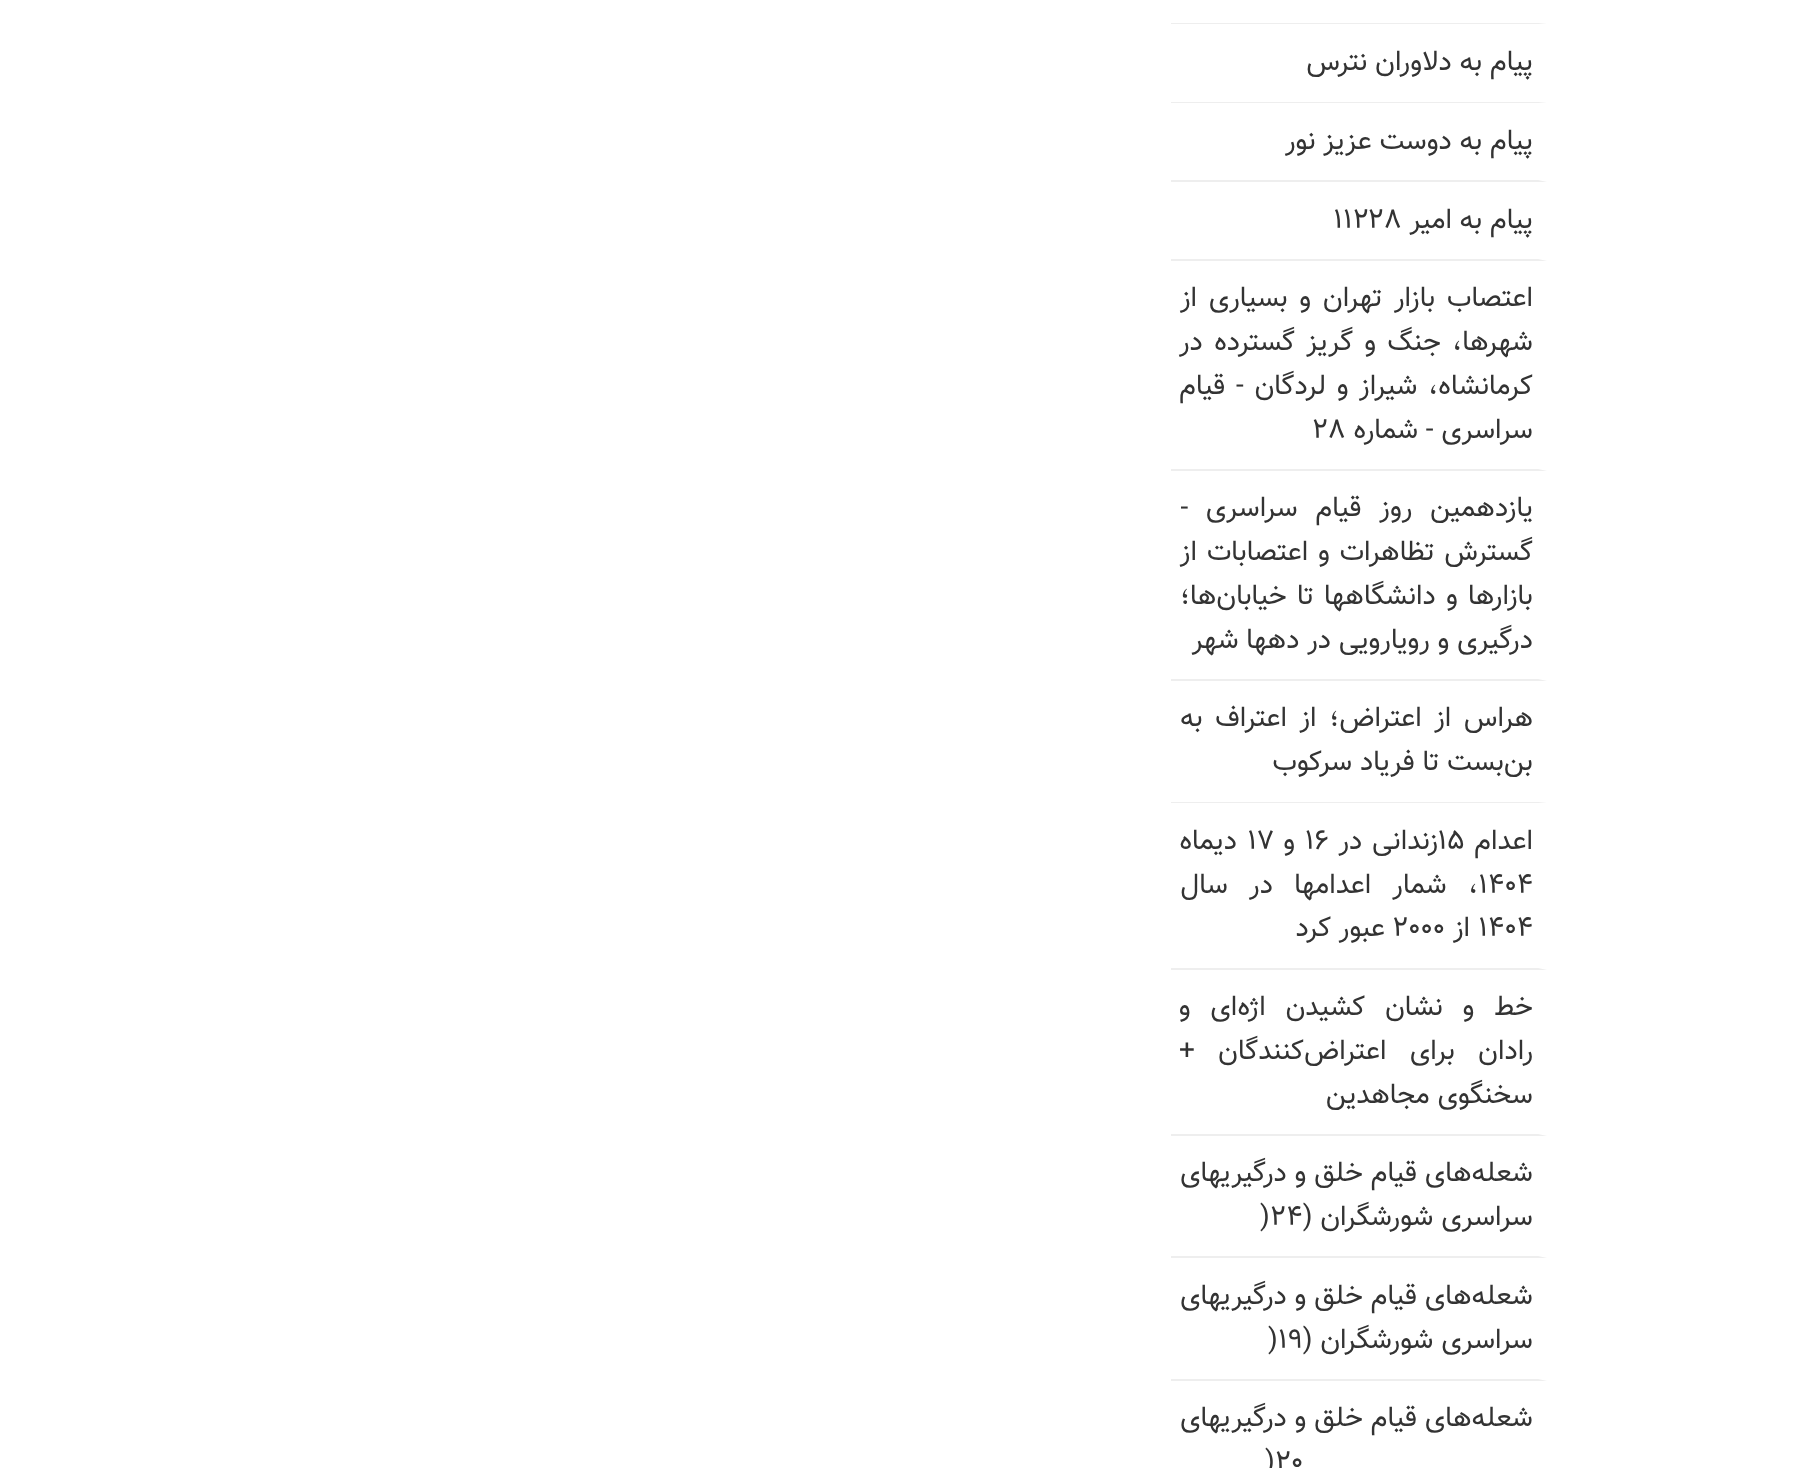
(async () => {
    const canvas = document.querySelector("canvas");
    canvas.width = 1815;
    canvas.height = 1468;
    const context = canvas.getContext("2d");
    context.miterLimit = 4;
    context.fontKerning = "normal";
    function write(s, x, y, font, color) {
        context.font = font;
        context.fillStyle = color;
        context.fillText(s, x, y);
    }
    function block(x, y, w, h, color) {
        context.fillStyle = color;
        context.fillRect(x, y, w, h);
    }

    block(0, 0, 1815, 1468, "rgb(255, 255, 255)");
    context.fillStyle = "rgb(238, 238, 238)";
    context.beginPath();
    context.moveTo(1547, 24);
    context.lineTo(1171, 24);
    context.lineTo(1171, 23);
    context.lineTo(1538, 23);
    context.closePath();
    context.fill();
    context.beginPath();
    context.moveTo(1547, 103);
    context.lineTo(1171, 103);
    context.lineTo(1171, 102);
    context.lineTo(1538, 102);
    context.closePath();
    context.fill();
    context.direction = "rtl";
    write("پیام به دلاوران نترس", 1533, 70, "28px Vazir", "rgb(51, 51, 51)");
    context.fillStyle = "rgb(238, 238, 238)";
    context.beginPath();
    context.moveTo(1547, 182);
    context.lineTo(1171, 182);
    context.lineTo(1171, 180);
    context.lineTo(1538, 180);
    context.closePath();
    context.fill();
    write("پیام به دوست عزیز نور", 1533, 149, "28px Vazir", "rgb(51, 51, 51)");
    context.fillStyle = "rgb(238, 238, 238)";
    context.beginPath();
    context.moveTo(1547, 261);
    context.lineTo(1171, 261);
    context.lineTo(1171, 259);
    context.lineTo(1538, 259);
    context.closePath();
    context.fill();
    write("پیام به امیر", 1533, 228, "28px Vazir", "rgb(51, 51, 51)");
    context.direction = "ltr";
    write("۱۱۲۲۸", 1333, 228, "28px Vazir", "rgb(51, 51, 51)");
    context.fillStyle = "rgb(238, 238, 238)";
    context.beginPath();
    context.moveTo(1547, 471);
    context.lineTo(1171, 471);
    context.lineTo(1171, 469);
    context.lineTo(1538, 469);
    context.closePath();
    context.fill();
    context.wordSpacing = "4px";
    context.direction = "rtl";
    write("اعتصاب بازار تهران و بسیاری از", 1533, 306, "28px Vazir", "rgb(51, 51, 51)");
    context.wordSpacing = "3.5px";
    write("شهرها، جنگ و گریز گسترده در", 1533, 350, "28px Vazir", "rgb(51, 51, 51)");
    context.wordSpacing = "3px";
    write("کرمانشاه، شیراز و لردگان - قیام", 1533, 394, "28px Vazir", "rgb(51, 51, 51)");
    context.wordSpacing = "0px";
    write("سراسری - شماره", 1533, 438, "28px Vazir", "rgb(51, 51, 51)");
    context.direction = "ltr";
    write("۲۸", 1313, 438, "28px Vazir", "rgb(51, 51, 51)");
    context.fillStyle = "rgb(238, 238, 238)";
    context.beginPath();
    context.moveTo(1547, 681);
    context.lineTo(1171, 681);
    context.lineTo(1171, 679);
    context.lineTo(1538, 679);
    context.closePath();
    context.fill();
    context.wordSpacing = "10px";
    context.direction = "rtl";
    write("یازدهمین روز قیام سراسری -", 1533, 516, "28px Vazir", "rgb(51, 51, 51)");
    context.wordSpacing = "2px";
    write("گسترش تظاهرات و اعتصابات از", 1533, 560, "28px Vazir", "rgb(51, 51, 51)");
    context.wordSpacing = "2.5px";
    write("بازارها و دانشگاهها تا خیابان‌ها؛", 1533, 604, "28px Vazir", "rgb(51, 51, 51)");
    context.wordSpacing = "0px";
    write("درگیری و رویارویی در دهها شهر", 1533, 648, "28px Vazir", "rgb(51, 51, 51)");
    context.fillStyle = "rgb(238, 238, 238)";
    context.beginPath();
    context.moveTo(1547, 803);
    context.lineTo(1171, 803);
    context.lineTo(1171, 802);
    context.lineTo(1538, 802);
    context.closePath();
    context.fill();
    context.wordSpacing = "4.75px";
    write("هراس از اعتراض؛ از اعتراف به", 1533, 726, "28px Vazir", "rgb(51, 51, 51)");
    context.wordSpacing = "0px";
    write("بن‌بست تا فریاد سرکوب", 1533, 770, "28px Vazir", "rgb(51, 51, 51)");
    context.fillStyle = "rgb(238, 238, 238)";
    context.beginPath();
    context.moveTo(1547, 970);
    context.lineTo(1171, 970);
    context.lineTo(1171, 968);
    context.lineTo(1538, 968);
    context.closePath();
    context.fill();
    write("اعدام", 1533, 849, "28px Vazir", "rgb(51, 51, 51)");
    context.direction = "ltr";
    write("۱۵", 1438, 849, "28px Vazir", "rgb(51, 51, 51)");
    context.wordSpacing = "2px";
    context.direction = "rtl";
    write("زندانی در", 1438, 849, "28px Vazir", "rgb(51, 51, 51)");
    context.wordSpacing = "0px";
    context.direction = "ltr";
    write("۱۶", 1305, 849, "28px Vazir", "rgb(51, 51, 51)");
    context.direction = "rtl";
    write("و", 1295, 849, "28px Vazir", "rgb(51, 51, 51)");
    context.direction = "ltr";
    write("۱۷", 1247, 849, "28px Vazir", "rgb(51, 51, 51)");
    context.direction = "rtl";
    write("دیماه", 1237, 849, "28px Vazir", "rgb(51, 51, 51)");
    context.direction = "ltr";
    write("۱۴۰۴", 1478, 893, "28px Vazir", "rgb(51, 51, 51)");
    context.wordSpacing = "13.5px";
    context.direction = "rtl";
    write("، شمار اعدامها در سال", 1478, 893, "28px Vazir", "rgb(51, 51, 51)");
    context.wordSpacing = "0px";
    context.direction = "ltr";
    write("۱۴۰۴", 1478, 936, "28px Vazir", "rgb(51, 51, 51)");
    context.direction = "rtl";
    write("از", 1470, 936, "28px Vazir", "rgb(51, 51, 51)");
    context.direction = "ltr";
    write("۲۰۰۰", 1392, 936, "28px Vazir", "rgb(51, 51, 51)");
    context.direction = "rtl";
    write("عبور کرد", 1385, 936, "28px Vazir", "rgb(51, 51, 51)");
    context.fillStyle = "rgb(238, 238, 238)";
    context.beginPath();
    context.moveTo(1547, 1136);
    context.lineTo(1171, 1136);
    context.lineTo(1171, 1134);
    context.lineTo(1538, 1134);
    context.closePath();
    context.fill();
    context.wordSpacing = "12px";
    write("خط و نشان کشیدن اژه‌ای و", 1533, 1015, "28px Vazir", "rgb(51, 51, 51)");
    context.wordSpacing = "15.5px";
    write("رادان برای اعتراض‌کنندگان +", 1533, 1059, "28px Vazir", "rgb(51, 51, 51)");
    context.wordSpacing = "0px";
    write("سخنگوی مجاهدین", 1533, 1103, "28px Vazir", "rgb(51, 51, 51)");
    context.fillStyle = "rgb(238, 238, 238)";
    context.beginPath();
    context.moveTo(1547, 1258);
    context.lineTo(1171, 1258);
    context.lineTo(1171, 1256);
    context.lineTo(1538, 1256);
    context.closePath();
    context.fill();
    write("شعله‌های قیام خلق و درگیریهای", 1533, 1181, "28px Vazir", "rgb(51, 51, 51)");
    write("سراسری شورشگران (", 1533, 1225, "28px Vazir", "rgb(51, 51, 51)");
    context.direction = "ltr";
    write(")۲۴", 1260, 1225, "28px Vazir", "rgb(51, 51, 51)");
    context.fillStyle = "rgb(238, 238, 238)";
    context.beginPath();
    context.moveTo(1547, 1381);
    context.lineTo(1171, 1381);
    context.lineTo(1171, 1379);
    context.lineTo(1538, 1379);
    context.closePath();
    context.fill();
    context.direction = "rtl";
    write("شعله‌های قیام خلق و درگیریهای", 1533, 1304, "28px Vazir", "rgb(51, 51, 51)");
    write("سراسری شورشگران (", 1533, 1348, "28px Vazir", "rgb(51, 51, 51)");
    context.direction = "ltr";
    write(")۱۹", 1268, 1348, "28px Vazir", "rgb(51, 51, 51)");
    context.direction = "rtl";
    write("شعله‌های قیام خلق و درگیریهای", 1533, 1426, "28px Vazir", "rgb(51, 51, 51)");
    context.direction = "ltr";
    write(")۲۰", 1265, 1470, "28px Vazir", "rgb(51, 51, 51)");
})();
